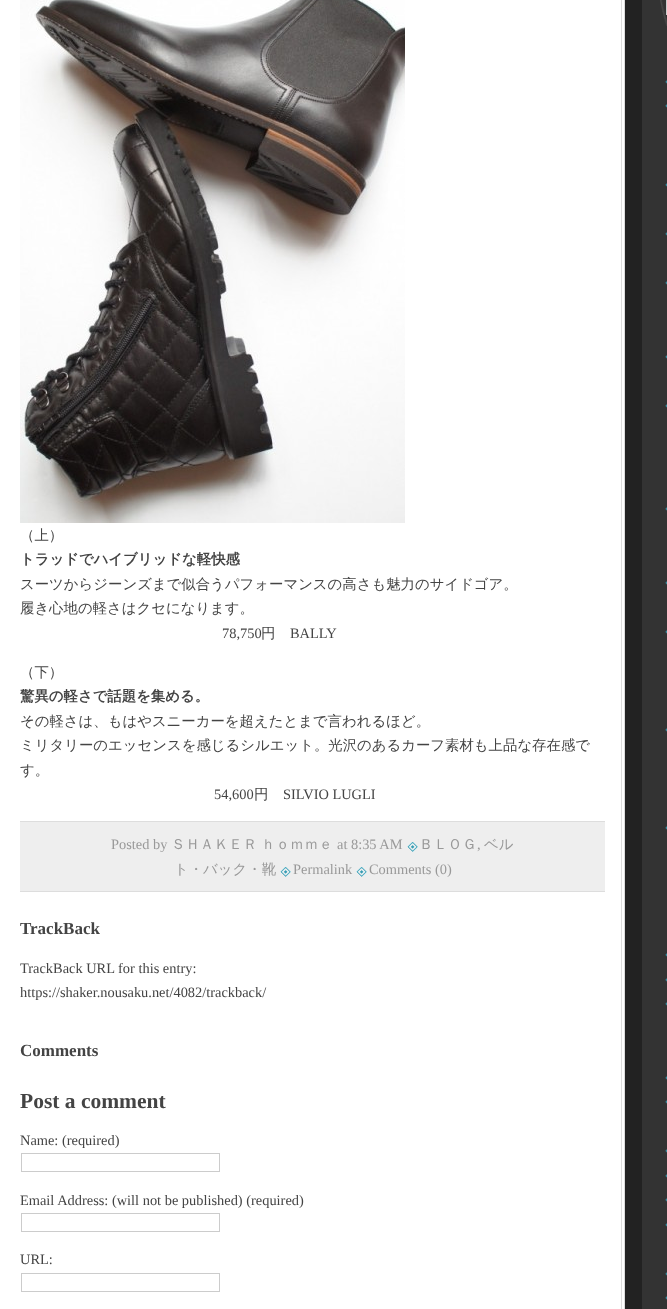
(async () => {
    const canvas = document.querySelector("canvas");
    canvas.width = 667;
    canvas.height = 1309;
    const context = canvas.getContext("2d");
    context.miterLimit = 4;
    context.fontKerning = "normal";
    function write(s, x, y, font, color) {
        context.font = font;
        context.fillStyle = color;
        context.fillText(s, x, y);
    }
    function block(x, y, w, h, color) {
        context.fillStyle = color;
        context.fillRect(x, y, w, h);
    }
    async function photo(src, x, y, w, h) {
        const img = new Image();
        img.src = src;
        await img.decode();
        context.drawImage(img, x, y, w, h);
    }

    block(0, 0, 667, 1309, "rgb(255, 255, 255)");
    await photo("media/1.png", 621, 0, 46, 1309);
    await photo("media/2.png", 20, 0, 385, 523);
    write("（上）", 20, 540, "500 14.4px WenQuanYi Zen Hei", "rgb(68, 68, 68)");
    write("トラッドでハイブリッドな軽快感", 20, 564, "bold 14.4px WenQuanYi Zen Hei", "rgb(68, 68, 68)");
    write("スーツからジーンズまで似合うパフォーマンスの高さも魅力のサイドゴア。", 20, 589, "500 14.4px WenQuanYi Zen Hei", "rgb(68, 68, 68)");
    write("履き心地の軽さはクセになります。", 20, 613, "500 14.4px WenQuanYi Zen Hei", "rgb(68, 68, 68)");
    write("78,750", 222, 638, "14.4px Liberation Serif", "rgb(68, 68, 68)");
    write("円", 261, 638, "500 14.4px WenQuanYi Zen Hei", "rgb(68, 68, 68)");
    write("BALLY", 290, 638, "14.4px Liberation Serif", "rgb(68, 68, 68)");
    write("（下）", 20, 677, "500 14.4px WenQuanYi Zen Hei", "rgb(68, 68, 68)");
    write("驚異の軽さで話題を集める。", 20, 701, "bold 14.4px WenQuanYi Zen Hei", "rgb(68, 68, 68)");
    write("その軽さは、もはやスニーカーを超えたとまで言われるほど。", 20, 726, "500 14.4px WenQuanYi Zen Hei", "rgb(68, 68, 68)");
    write("ミリタリーのエッセンスを感じるシルエット。光沢のあるカーフ素材も上品な存在感で", 20, 750, "500 14.4px WenQuanYi Zen Hei", "rgb(68, 68, 68)");
    write("す。", 20, 775, "500 14.4px WenQuanYi Zen Hei", "rgb(68, 68, 68)");
    write("54,600", 214, 799, "14.4px Liberation Serif", "rgb(68, 68, 68)");
    write("円", 254, 799, "500 14.4px WenQuanYi Zen Hei", "rgb(68, 68, 68)");
    write("SILVIO LUGLI", 283, 799, "14.4px Liberation Serif", "rgb(68, 68, 68)");
    block(20, 822, 585, 69, "rgb(238, 238, 238)");
    block(20, 821, 585, 1, "rgb(221, 221, 221)");
    block(20, 891, 585, 1, "rgb(221, 221, 221)");
    write("Posted by", 111, 849, "14.4px Liberation Serif", "rgb(153, 153, 153)");
    write("ＳＨＡＫＥＲ", 171, 849, "500 14.4px WenQuanYi Zen Hei", "rgb(153, 153, 153)");
    write("ｈｏｍｍｅ", 261, 849, "500 14.4px WenQuanYi Zen Hei", "rgb(153, 153, 153)");
    write("at 8:35 AM", 337, 849, "14.4px Liberation Serif", "rgb(153, 153, 153)");
    await photo("media/3.png", 407, 842, 11, 10);
    write("ＢＬＯＧ", 419, 849, "500 14.4px WenQuanYi Zen Hei", "rgb(153, 153, 153)");
    write(",", 477, 849, "14.4px Liberation Serif", "rgb(153, 153, 153)");
    write("ベル", 484, 849, "500 14.4px WenQuanYi Zen Hei", "rgb(153, 153, 153)");
    write("ト・バック・靴", 174, 874, "500 14.4px WenQuanYi Zen Hei", "rgb(153, 153, 153)");
    await photo("media/3.png", 280, 867, 11, 10);
    write("Permalink", 293, 874, "14.4px Liberation Serif", "rgb(153, 153, 153)");
    await photo("media/3.png", 356, 867, 11, 10);
    write("Comments (0)", 369, 874, "14.4px Liberation Serif", "rgb(153, 153, 153)");
    write("TrackBack", 20, 934, "bold 17px Liberation Serif", "rgb(68, 68, 68)");
    write("TrackBack URL for this entry:", 20, 973, "14.4px Liberation Serif", "rgb(68, 68, 68)");
    write("https://shaker.nousaku.net/4082/trackback/", 20, 997, "14.4px Liberation Serif", "rgb(68, 68, 68)");
    write("Comments", 20, 1056, "bold 17px Liberation Serif", "rgb(68, 68, 68)");
    write("Post a comment", 20, 1108, "bold 21.5px Liberation Serif", "rgb(68, 68, 68)");
    write("Name: (required)", 20, 1145, "14.4px Liberation Serif", "rgb(68, 68, 68)");
    context.strokeStyle = "rgb(204, 204, 204)";
    context.strokeRect(21.5, 1153.5, 198, 18);
    write("Email Address: (will not be published) (required)", 20, 1205, "14.4px Liberation Serif", "rgb(68, 68, 68)");
    context.strokeRect(21.5, 1213.5, 198, 18);
    write("URL:", 20, 1264, "14.4px Liberation Serif", "rgb(68, 68, 68)");
    context.strokeRect(21.5, 1273.5, 198, 18);
    await photo("media/4.png", 660, 0, 7, 26);
    context.strokeRect(666.5, -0.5, 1, 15);
    await photo("media/5.png", 665, 80, 2, 4);
    await photo("media/5.png", 665, 104, 2, 4);
    await photo("media/5.png", 665, 183, 2, 4);
    await photo("media/5.png", 665, 232, 2, 4);
    await photo("media/5.png", 665, 281, 2, 4);
    await photo("media/5.png", 665, 355, 2, 4);
    await photo("media/5.png", 665, 404, 2, 4);
    await photo("media/5.png", 665, 507, 2, 4);
    await photo("media/5.png", 665, 581, 2, 4);
    await photo("media/5.png", 665, 630, 2, 4);
    await photo("media/5.png", 665, 728, 2, 4);
    await photo("media/5.png", 665, 826, 2, 4);
    await photo("media/5.png", 665, 953, 2, 4);
    await photo("media/5.png", 665, 978, 2, 4);
    await photo("media/5.png", 665, 1002, 2, 4);
    await photo("media/5.png", 665, 1076, 2, 4);
    await photo("media/5.png", 665, 1100, 2, 4);
    await photo("media/5.png", 665, 1149, 2, 4);
    await photo("media/5.png", 665, 1174, 2, 4);
    await photo("media/5.png", 665, 1198, 2, 4);
    await photo("media/5.png", 665, 1223, 2, 4);
    await photo("media/5.png", 665, 1272, 2, 4);
    await photo("media/5.png", 665, 1296, 2, 4);
})();
